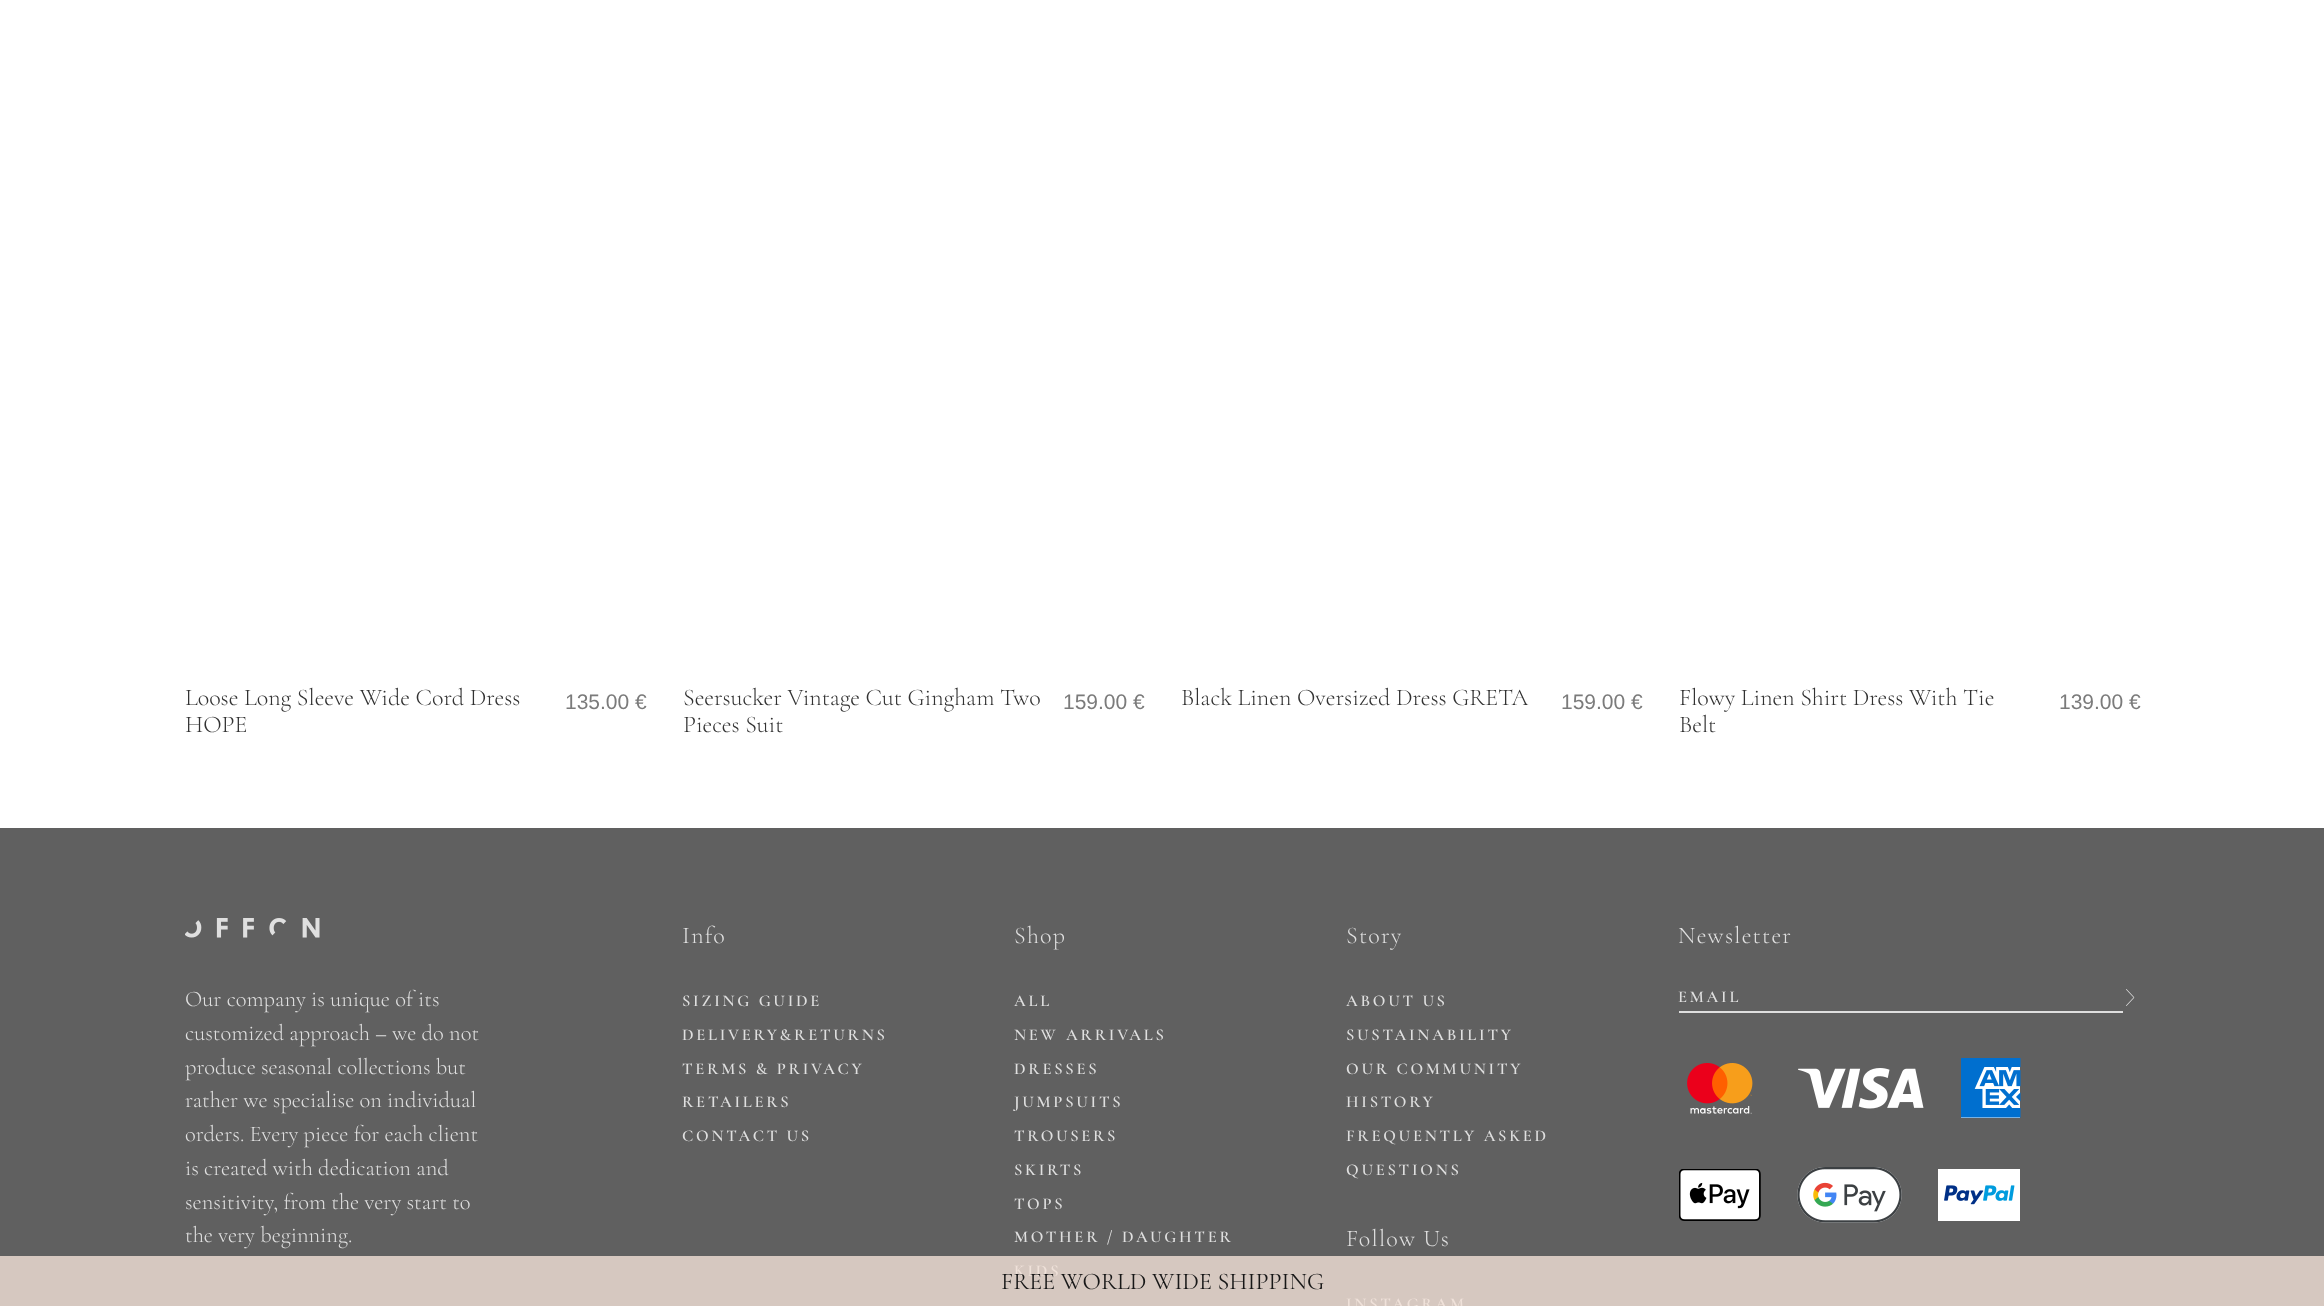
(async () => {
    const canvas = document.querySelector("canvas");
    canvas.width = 2324;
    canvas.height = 1306;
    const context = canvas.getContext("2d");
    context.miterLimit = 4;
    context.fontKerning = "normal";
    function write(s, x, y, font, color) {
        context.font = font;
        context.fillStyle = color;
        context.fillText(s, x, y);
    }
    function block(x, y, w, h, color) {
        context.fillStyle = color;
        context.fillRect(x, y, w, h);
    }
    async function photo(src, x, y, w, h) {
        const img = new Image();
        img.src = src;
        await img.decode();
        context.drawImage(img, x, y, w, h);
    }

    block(0, 0, 2324, 1306, "rgb(255, 255, 255)");
    write("Loose Long Sleeve Wide Cord Dress", 185, 705, "300 24px Cormorant Garamond", "rgb(51, 51, 51)");
    write("HOPE", 185, 732, "300 24px Cormorant Garamond", "rgb(51, 51, 51)");
    write("135.00 €", 565, 709, "21px Liberation Sans", "rgb(123, 123, 123)");
    write("Seersucker Vintage Cut Gingham Two", 683, 705, "300 24px Cormorant Garamond", "rgb(51, 51, 51)");
    write("Pieces Suit", 683, 732, "300 24px Cormorant Garamond", "rgb(51, 51, 51)");
    write("159.00 €", 1063, 709, "21px Liberation Sans", "rgb(123, 123, 123)");
    write("Black Linen Oversized Dress GRETA", 1181, 705, "300 24px Cormorant Garamond", "rgb(51, 51, 51)");
    write("159.00 €", 1561, 709, "21px Liberation Sans", "rgb(123, 123, 123)");
    write("Flowy Linen Shirt Dress With Tie", 1679, 705, "300 24px Cormorant Garamond", "rgb(51, 51, 51)");
    write("Belt", 1679, 732, "300 24px Cormorant Garamond", "rgb(51, 51, 51)");
    write("139.00 €", 2059, 709, "21px Liberation Sans", "rgb(123, 123, 123)");
    block(0, 828, 2324, 428, "rgb(96, 96, 96)");
    block(0, 1256, 2324, 50, "rgb(214, 200, 192)");
    await photo("media/1.png", 185, 918, 135, 20);
    write("Our company is unique of its", 185, 1006, "300 22.5px Cormorant Garamond", "rgb(223, 223, 223)");
    write("customized approach – we do not", 185, 1040, "300 22.5px Cormorant Garamond", "rgb(223, 223, 223)");
    write("produce seasonal collections but", 185, 1074, "300 22.5px Cormorant Garamond", "rgb(223, 223, 223)");
    write("rather we specialise on individual", 185, 1107, "300 22.5px Cormorant Garamond", "rgb(223, 223, 223)");
    write("orders. Every piece for each client", 185, 1141, "300 22.5px Cormorant Garamond", "rgb(223, 223, 223)");
    write("is created with dedication and", 185, 1175, "300 22.5px Cormorant Garamond", "rgb(223, 223, 223)");
    write("sensitivity, from the very start to", 185, 1209, "300 22.5px Cormorant Garamond", "rgb(223, 223, 223)");
    write("the very beginning.", 185, 1242, "300 22.5px Cormorant Garamond", "rgb(223, 223, 223)");
    context.letterSpacing = "1.25px";
    write("Info", 682, 943, "300 24px Cormorant Garamond", "rgb(223, 223, 223)");
    context.letterSpacing = "2.75px";
    write("SIZING GUIDE", 682, 1006, "600 16.5px Cormorant Garamond", "rgb(223, 223, 223)");
    write("DELIVERY&RETURNS", 682, 1040, "600 16.5px Cormorant Garamond", "rgb(223, 223, 223)");
    write("TERMS & PRIVACY", 682, 1074, "600 16.5px Cormorant Garamond", "rgb(223, 223, 223)");
    write("RETAILERS", 682, 1107, "600 16.5px Cormorant Garamond", "rgb(223, 223, 223)");
    write("CONTACT US", 682, 1141, "600 16.5px Cormorant Garamond", "rgb(223, 223, 223)");
    context.letterSpacing = "1.25px";
    write("Shop", 1014, 943, "300 24px Cormorant Garamond", "rgb(223, 223, 223)");
    context.letterSpacing = "2.75px";
    write("ALL", 1014, 1006, "600 16.5px Cormorant Garamond", "rgb(223, 223, 223)");
    context.wordSpacing = "1px";
    write("NEW ARRIVALS", 1014, 1040, "600 16.5px Cormorant Garamond", "rgb(223, 223, 223)");
    context.wordSpacing = "0px";
    write("DRESSES", 1014, 1074, "600 16.5px Cormorant Garamond", "rgb(223, 223, 223)");
    write("JUMPSUITS", 1014, 1107, "600 16.5px Cormorant Garamond", "rgb(223, 223, 223)");
    write("TROUSERS", 1014, 1141, "600 16.5px Cormorant Garamond", "rgb(223, 223, 223)");
    write("SKIRTS", 1014, 1175, "600 16.5px Cormorant Garamond", "rgb(223, 223, 223)");
    write("TOPS", 1014, 1209, "600 16.5px Cormorant Garamond", "rgb(223, 223, 223)");
    write("MOTHER / DAUGHTER", 1014, 1242, "600 16.5px Cormorant Garamond", "rgb(223, 223, 223)");
    write("KIDS", 1014, 1276, "600 16.5px Cormorant Garamond", "rgb(239, 225, 217)");
    context.letterSpacing = "1.25px";
    write("Story", 1346, 943, "300 24px Cormorant Garamond", "rgb(223, 223, 223)");
    context.letterSpacing = "2.75px";
    write("ABOUT US", 1346, 1006, "600 16.5px Cormorant Garamond", "rgb(223, 223, 223)");
    write("SUSTAINABILITY", 1346, 1040, "600 16.5px Cormorant Garamond", "rgb(223, 223, 223)");
    write("OUR COMMUNITY", 1346, 1074, "600 16.5px Cormorant Garamond", "rgb(223, 223, 223)");
    write("HISTORY", 1346, 1107, "600 16.5px Cormorant Garamond", "rgb(223, 223, 223)");
    write("FREQUENTLY ASKED", 1346, 1141, "600 16.5px Cormorant Garamond", "rgb(223, 223, 223)");
    write("QUESTIONS", 1346, 1175, "600 16.5px Cormorant Garamond", "rgb(223, 223, 223)");
    context.letterSpacing = "1.25px";
    write("Follow Us", 1346, 1246, "300 24px Cormorant Garamond", "rgb(223, 223, 223)");
    context.letterSpacing = "2.75px";
    write("INSTAGRAM", 1346, 1309, "600 16.5px Cormorant Garamond", "rgb(239, 225, 217)");
    context.letterSpacing = "1.25px";
    write("Newsletter", 1678, 943, "300 24px Cormorant Garamond", "rgb(223, 223, 223)");
    block(1679, 1011, 444, 2, "rgb(223, 223, 223)");
    context.letterSpacing = "2.75px";
    write("EMAIL", 1678, 1002, "600 16.5px Cormorant Garamond", "rgb(223, 223, 223)");
    await photo("media/2.png", 2126, 989, 9, 17);
    await photo("media/3.png", 1687, 1063, 66, 51);
    await photo("media/4.png", 1798, 1068, 126, 41);
    await photo("media/5.png", 1961, 1058, 60, 60);
    await photo("media/6.png", 1679, 1169, 82, 52);
    await photo("media/7.png", 1797, 1167, 105, 56);
    await photo("media/8.png", 1938, 1169, 82, 52);
    context.letterSpacing = "0px";
    write("FREE WORLD WIDE SHIPPING", 1001, 1289, "24px Cormorant Garamond", "rgb(23, 23, 23)");
})();
